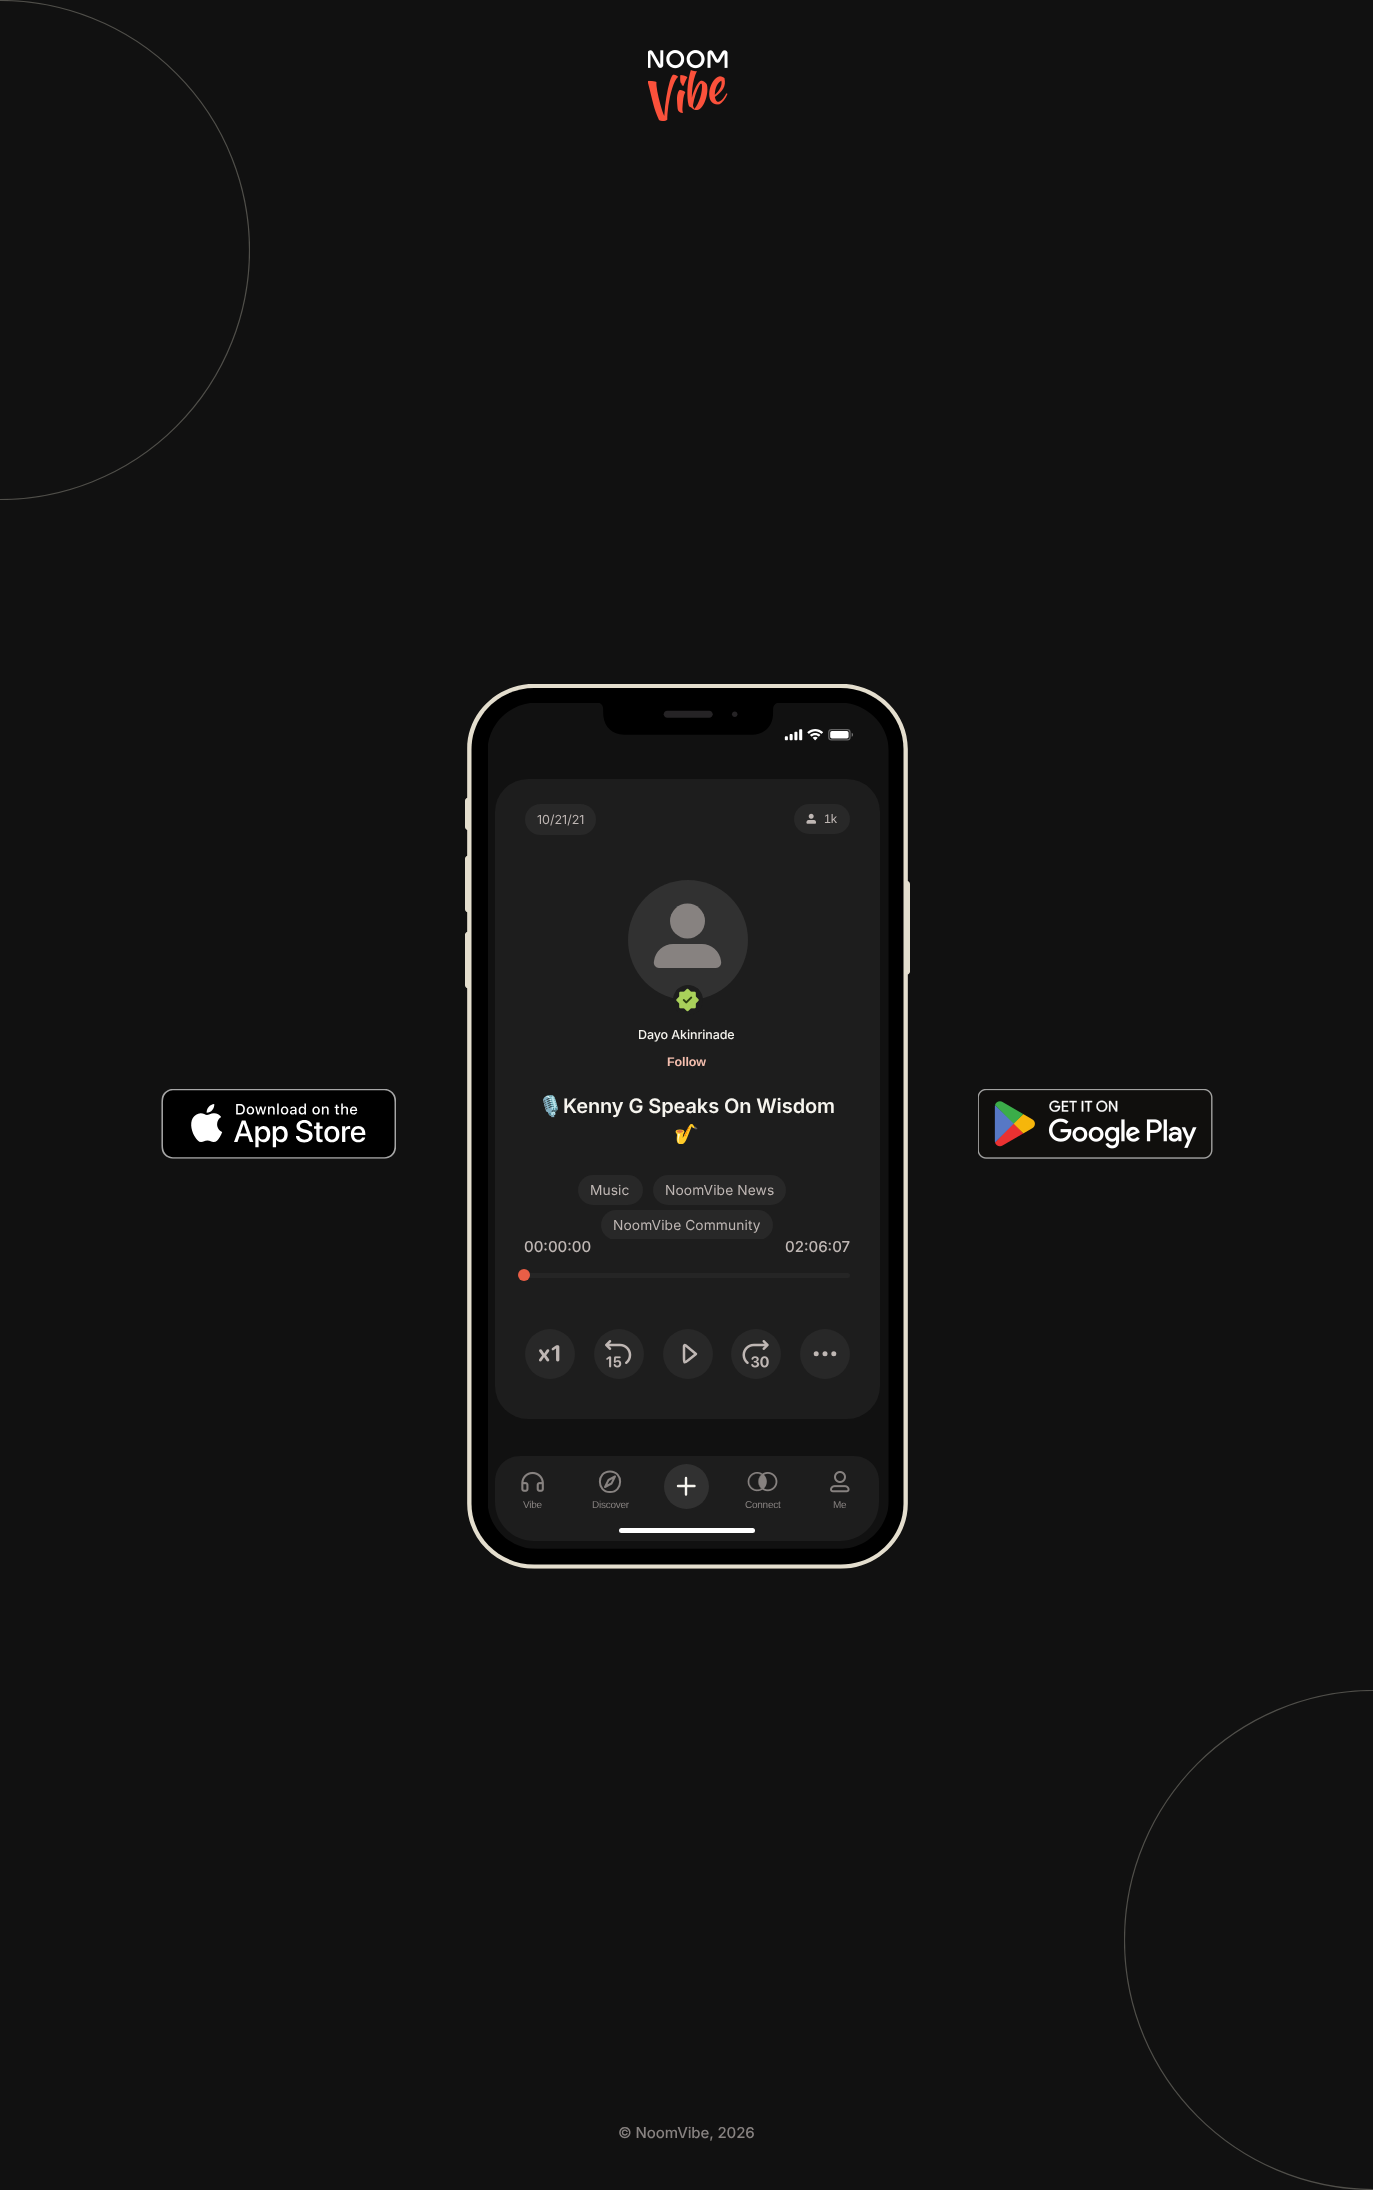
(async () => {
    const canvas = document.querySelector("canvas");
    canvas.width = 1373;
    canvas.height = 2190;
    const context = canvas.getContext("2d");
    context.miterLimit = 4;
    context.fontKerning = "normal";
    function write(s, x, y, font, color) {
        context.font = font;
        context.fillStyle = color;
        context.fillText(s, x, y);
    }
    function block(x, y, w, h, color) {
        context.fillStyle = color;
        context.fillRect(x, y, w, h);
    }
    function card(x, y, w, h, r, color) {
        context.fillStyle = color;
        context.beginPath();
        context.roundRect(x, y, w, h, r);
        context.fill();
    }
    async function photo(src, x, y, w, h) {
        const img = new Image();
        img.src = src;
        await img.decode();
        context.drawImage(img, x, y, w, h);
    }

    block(0, 0, 1373, 2190, "rgb(17, 17, 17)");
    context.save();
    context.beginPath();
    context.rect(0, 0, 250, 500);
    context.clip();
    context.beginPath();
    context.arc(0, 250, 249.5, 0, Math.PI * 2);
    context.strokeStyle = "rgb(80, 79, 74)";
    context.lineWidth = 1.2;
    context.stroke();
    context.restore();
    await photo("media/1.png", 648, 50, 80, 71);
    await photo("media/2.png", 161, 1089, 235, 70);
    await photo("media/3.png", 465, 684, 445, 885);
    card(495, 779, 385, 640, 33, "rgb(29, 29, 29)");
    card(525, 804, 71, 31, 15.5, "rgb(40, 40, 40)");
    write("10/21/21", 537, 824, "12.5px Inter", "rgb(191, 183, 180)");
    card(794, 804, 56, 30, 15, "rgb(40, 40, 40)");
    await photo("media/4.png", 806, 813, 10, 11);
    context.letterSpacing = "-0.1px";
    write("1k", 824, 823, "12.5px Liberation Sans", "rgb(191, 183, 180)");
    context.fillStyle = "rgb(49, 49, 49)";
    context.beginPath();
    context.arc(688, 940, 60, 0, Math.PI * 2);
    context.fill();
    context.fillStyle = "rgb(135, 130, 128)";
    context.beginPath();
    context.arc(687.5, 921, 17.5, 0, Math.PI * 2);
    context.fill();
    context.beginPath();
    context.moveTo(654, 961);
    context.bezierCurveTo(655, 951, 664, 944, 673, 944);
    context.lineTo(702, 944);
    context.bezierCurveTo(711, 944, 720, 951, 721, 961);
    context.bezierCurveTo(722, 965, 719, 968, 716, 968);
    context.lineTo(659, 968);
    context.bezierCurveTo(656, 968, 653, 965, 654, 961);
    context.closePath();
    context.fill();
    await photo("media/5.png", 673, 985, 30, 30);
    await photo("media/6.png", 676, 988, 23, 24);
    write("Dayo Akinrinade", 638, 1039, "500 12.5px Inter", "rgb(246, 244, 238)");
    write("Follow", 667, 1066, "bold 12.5px Liberation Sans", "rgb(244, 190, 174)");
    write("🎙", 538, 1113, "bold 20px Noto Color Emoji", "rgb(246, 244, 238)");
    write("Kenny G Speaks On Wisdom", 563, 1113, "600 20px Inter", "rgb(246, 244, 238)");
    context.save();
    context.beginPath();
    context.rect(525, 1093, 325, 51);
    context.clip();
    write("🎷", 674, 1141, "bold 20px Noto Color Emoji", "rgb(246, 244, 238)");
    context.restore();
    card(578, 1175, 65, 30, 15, "rgb(40, 40, 40)");
    context.letterSpacing = "0.1px";
    write("Music", 590, 1195, "13.75px Inter", "rgb(191, 183, 180)");
    card(653, 1175, 133, 30, 15, "rgb(40, 40, 40)");
    write("NoomVibe News", 665, 1195, "13.75px Inter", "rgb(191, 183, 180)");
    context.save();
    context.beginPath();
    context.rect(525, 1175, 325, 64);
    context.clip();
    card(601, 1210, 172, 30, 15, "rgb(40, 40, 40)");
    context.restore();
    write("NoomVibe Community", 613, 1230, "13.75px Inter", "rgb(191, 183, 180)");
    context.letterSpacing = "0px";
    write("00:00:00", 524, 1252, "500 15px Inter", "rgb(191, 183, 180)");
    write("02:06:07", 785, 1252, "500 15px Inter", "rgb(191, 183, 180)");
    card(525, 1273, 325, 5, 2.5, "rgb(37, 37, 37)");
    context.fillStyle = "rgb(232, 94, 70)";
    context.beginPath();
    context.arc(524, 1275, 6, 0, Math.PI * 2);
    context.fill();
    context.fillStyle = "rgb(40, 40, 40)";
    context.beginPath();
    context.arc(550, 1354, 25, 0, Math.PI * 2);
    context.fill();
    await photo("media/7.png", 539, 1345, 21, 17);
    context.beginPath();
    context.arc(619, 1354, 25, 0, Math.PI * 2);
    context.fill();
    await photo("media/8.png", 605, 1340, 27, 28);
    context.beginPath();
    context.arc(688, 1354, 25, 0, Math.PI * 2);
    context.fill();
    context.beginPath();
    context.moveTo(687, 1346.5);
    context.lineTo(696, 1354);
    context.lineTo(688.5, 1360);
    context.bezierCurveTo(684, 1363.5, 684, 1363.5, 684, 1357.5);
    context.lineTo(684, 1346.5);
    context.bezierCurveTo(684, 1344, 686, 1345.5, 687, 1346.5);
    context.closePath();
    context.strokeStyle = "rgb(191, 183, 180)";
    context.lineWidth = 2.5;
    context.lineCap = "round";
    context.lineJoin = "round";
    context.stroke();
    context.beginPath();
    context.arc(756, 1354, 25, 0, Math.PI * 2);
    context.fill();
    await photo("media/9.png", 742, 1340, 27, 28);
    context.beginPath();
    context.arc(825, 1354, 25, 0, Math.PI * 2);
    context.fill();
    context.fillStyle = "rgb(191, 183, 180)";
    context.beginPath();
    context.arc(833.8, 1353.8, 2.5, 0, Math.PI * 2);
    context.fill();
    context.beginPath();
    context.arc(825, 1353.8, 2.5, 0, Math.PI * 2);
    context.fill();
    context.beginPath();
    context.arc(816.2, 1353.8, 2.5, 0, Math.PI * 2);
    context.fill();
    context.fillStyle = "rgb(29, 29, 29)";
    context.beginPath();
    context.moveTo(534, 1541);
    context.lineTo(840, 1541);
    context.bezierCurveTo(861, 1541, 879, 1524, 879, 1502);
    context.lineTo(879, 1481);
    context.bezierCurveTo(879, 1467, 868, 1456, 854, 1456);
    context.lineTo(520, 1456);
    context.bezierCurveTo(506, 1456, 495, 1467, 495, 1481);
    context.lineTo(495, 1502);
    context.bezierCurveTo(495, 1524, 513, 1541, 534, 1541);
    context.closePath();
    context.fill();
    await photo("media/10.png", 521, 1471, 23, 21);
    context.letterSpacing = "-0.25px";
    write("Vibe", 523, 1508, "10px Liberation Sans", "rgb(135, 130, 128)");
    context.beginPath();
    context.moveTo(610, 1492);
    context.bezierCurveTo(623.5, 1492, 623.5, 1471.5, 610, 1471.5);
    context.bezierCurveTo(596.5, 1471.5, 596.5, 1492, 610, 1492);
    context.closePath();
    context.strokeStyle = "rgb(135, 130, 128)";
    context.lineWidth = 2;
    context.lineCap = "butt";
    context.lineJoin = "miter";
    context.stroke();
    context.beginPath();
    context.moveTo(615, 1476.5);
    context.lineTo(608.5, 1480);
    context.lineTo(605, 1487);
    context.lineTo(611.5, 1483.5);
    context.closePath();
    context.lineCap = "round";
    context.lineJoin = "round";
    context.stroke();
    write("Discover", 592, 1508, "10px Liberation Sans", "rgb(135, 130, 128)");
    context.fillStyle = "rgb(49, 49, 49)";
    context.beginPath();
    context.arc(686.5, 1486.5, 22.5, 0, Math.PI * 2);
    context.fill();
    context.beginPath();
    context.moveTo(686, 1478);
    context.lineTo(686, 1494.5);
    context.moveTo(694.5, 1486);
    context.lineTo(678, 1486);
    context.strokeStyle = "rgb(246, 244, 238)";
    context.lineWidth = 2.4;
    context.stroke();
    await photo("media/11.png", 747, 1472, 31, 20);
    write("Connect", 745, 1508, "10px Liberation Sans", "rgb(135, 130, 128)");
    await photo("media/12.png", 830, 1471, 20, 22);
    write("Me", 833, 1508, "10px Liberation Sans", "rgb(135, 130, 128)");
    card(619, 1528, 136, 5, 2.5, "rgb(255, 255, 255)");
    await photo("media/13.png", 978, 1089, 235, 70);
    context.letterSpacing = "-0.1px";
    write("© NoomVibe, 2026", 618, 2138, "500 15px Inter", "rgb(135, 130, 128)");
    context.save();
    context.beginPath();
    context.rect(1124, 1690, 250, 500);
    context.clip();
    context.beginPath();
    context.moveTo(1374, 2189.5);
    context.bezierCurveTo(1236, 2189.5, 1124.5, 2077.5, 1124.5, 1940);
    context.bezierCurveTo(1124.5, 1802.5, 1236, 1690.5, 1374, 1690.5);
    context.bezierCurveTo(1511.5, 1690.5, 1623, 1802.5, 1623, 1940);
    context.bezierCurveTo(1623, 2077.5, 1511.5, 2189.5, 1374, 2189.5);
    context.closePath();
    context.strokeStyle = "rgb(80, 79, 74)";
    context.lineWidth = 1.2;
    context.lineCap = "butt";
    context.lineJoin = "miter";
    context.stroke();
    context.restore();
})();
